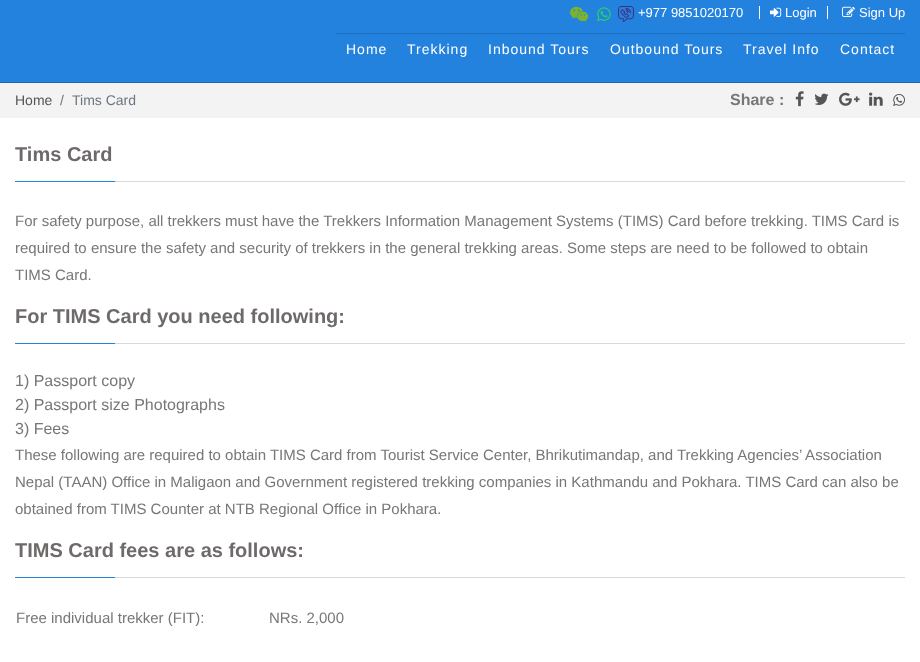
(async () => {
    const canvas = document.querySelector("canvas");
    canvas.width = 920;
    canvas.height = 662;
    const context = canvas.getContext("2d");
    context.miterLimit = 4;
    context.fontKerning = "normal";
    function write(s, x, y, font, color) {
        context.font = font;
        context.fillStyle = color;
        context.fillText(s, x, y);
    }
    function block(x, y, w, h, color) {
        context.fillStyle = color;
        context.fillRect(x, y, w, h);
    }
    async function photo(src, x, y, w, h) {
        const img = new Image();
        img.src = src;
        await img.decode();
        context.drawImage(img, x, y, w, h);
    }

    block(0, 0, 920, 662, "rgb(255, 255, 255)");
    block(0, 0, 920, 82, "rgb(35, 130, 222)");
    block(0, 82, 920, 1, "rgb(28, 103, 175)");
    await photo("media/1.png", 570, 6, 19, 16);
    await photo("media/2.png", 597, 7, 14, 15);
    await photo("media/3.png", 618, 6, 16, 16);
    write("+977 9851020170", 638, 17, "13px Liberation Sans", "rgb(255, 255, 255)");
    block(827, 6, 1, 13, "rgb(255, 255, 255)");
    block(759, 6, 1, 13, "rgb(255, 255, 255)");
    await photo("media/4.png", 770, 7, 12, 10);
    write("Login", 785, 17, "13px Liberation Sans", "rgb(255, 255, 255)");
    await photo("media/5.png", 842, 6, 13, 11);
    write("Sign Up", 859, 17, "13px Liberation Sans", "rgb(255, 255, 255)");
    block(336, 33, 569, 1, "rgb(29, 112, 191)");
    context.letterSpacing = "1px";
    write("Home", 346, 54, "14px Liberation Sans", "rgb(255, 255, 255)");
    write("Trekking", 407, 54, "14px Liberation Sans", "rgb(255, 255, 255)");
    write("Inbound Tours", 488, 54, "14px Liberation Sans", "rgb(255, 255, 255)");
    write("Outbound Tours", 610, 54, "14px Liberation Sans", "rgb(255, 255, 255)");
    write("Travel Info", 743, 54, "14px Liberation Sans", "rgb(255, 255, 255)");
    write("Contact", 840, 54, "14px Liberation Sans", "rgb(255, 255, 255)");
    block(0, 83, 920, 35, "rgb(243, 243, 243)");
    context.letterSpacing = "0px";
    write("Home", 15, 105, "14px Liberation Sans", "rgb(85, 85, 85)");
    write("/", 60, 105, "14px Liberation Sans", "rgb(108, 117, 125)");
    write("Tims Card", 72, 105, "14px Liberation Sans", "rgb(108, 117, 125)");
    write("Share :", 730, 105, "bold 16px Liberation Sans", "rgb(119, 119, 119)");
    await photo("media/6.png", 795, 91, 9, 16);
    await photo("media/7.png", 814, 93, 15, 12);
    await photo("media/8.png", 839, 92, 21, 14);
    await photo("media/9.png", 869, 92, 14, 14);
    await photo("media/10.png", 893, 94, 12, 12);
    block(115, 181, 790, 1, "rgb(217, 217, 217)");
    write("Tims Card", 15, 161, "bold 20px Liberation Sans", "rgb(110, 106, 106)");
    block(15, 181, 100, 1, "rgb(35, 130, 222)");
    write("For safety purpose, all trekkers must have the Trekkers Information Management Systems (TIMS) Card before trekking. TIMS Card is", 15, 226, "15px Liberation Sans", "rgb(119, 119, 119)");
    write("required to ensure the safety and security of trekkers in the general trekking areas. Some steps are need to be followed to obtain", 15, 253, "15px Liberation Sans", "rgb(119, 119, 119)");
    write("TIMS Card.", 15, 280, "15px Liberation Sans", "rgb(119, 119, 119)");
    block(115, 343, 790, 1, "rgb(217, 217, 217)");
    write("For TIMS Card you need following:", 15, 323, "bold 20px Liberation Sans", "rgb(110, 106, 106)");
    block(15, 343, 100, 1, "rgb(35, 130, 222)");
    write("1) Passport copy", 15, 386, "16px Liberation Sans", "rgb(119, 119, 119)");
    write("2) Passport size Photographs", 15, 410, "16px Liberation Sans", "rgb(119, 119, 119)");
    write("3) Fees", 15, 434, "16px Liberation Sans", "rgb(119, 119, 119)");
    write("These following are required to obtain TIMS Card from Tourist Service Center, Bhrikutimandap, and Trekking Agencies’ Association", 15, 460, "15px Liberation Sans", "rgb(119, 119, 119)");
    write("Nepal (TAAN) Office in Maligaon and Government registered trekking companies in Kathmandu and Pokhara. TIMS Card can also be", 15, 487, "15px Liberation Sans", "rgb(119, 119, 119)");
    write("obtained from TIMS Counter at NTB Regional Office in Pokhara.", 15, 514, "15px Liberation Sans", "rgb(119, 119, 119)");
    block(115, 577, 790, 1, "rgb(217, 217, 217)");
    write("TIMS Card fees are as follows:", 15, 557, "bold 20px Liberation Sans", "rgb(110, 106, 106)");
    block(15, 577, 100, 1, "rgb(35, 130, 222)");
    write("Free individual trekker (FIT):", 16, 623, "15px Liberation Sans", "rgb(119, 119, 119)");
    write("NRs. 2,000", 269, 623, "15px Liberation Sans", "rgb(119, 119, 119)");
})();
